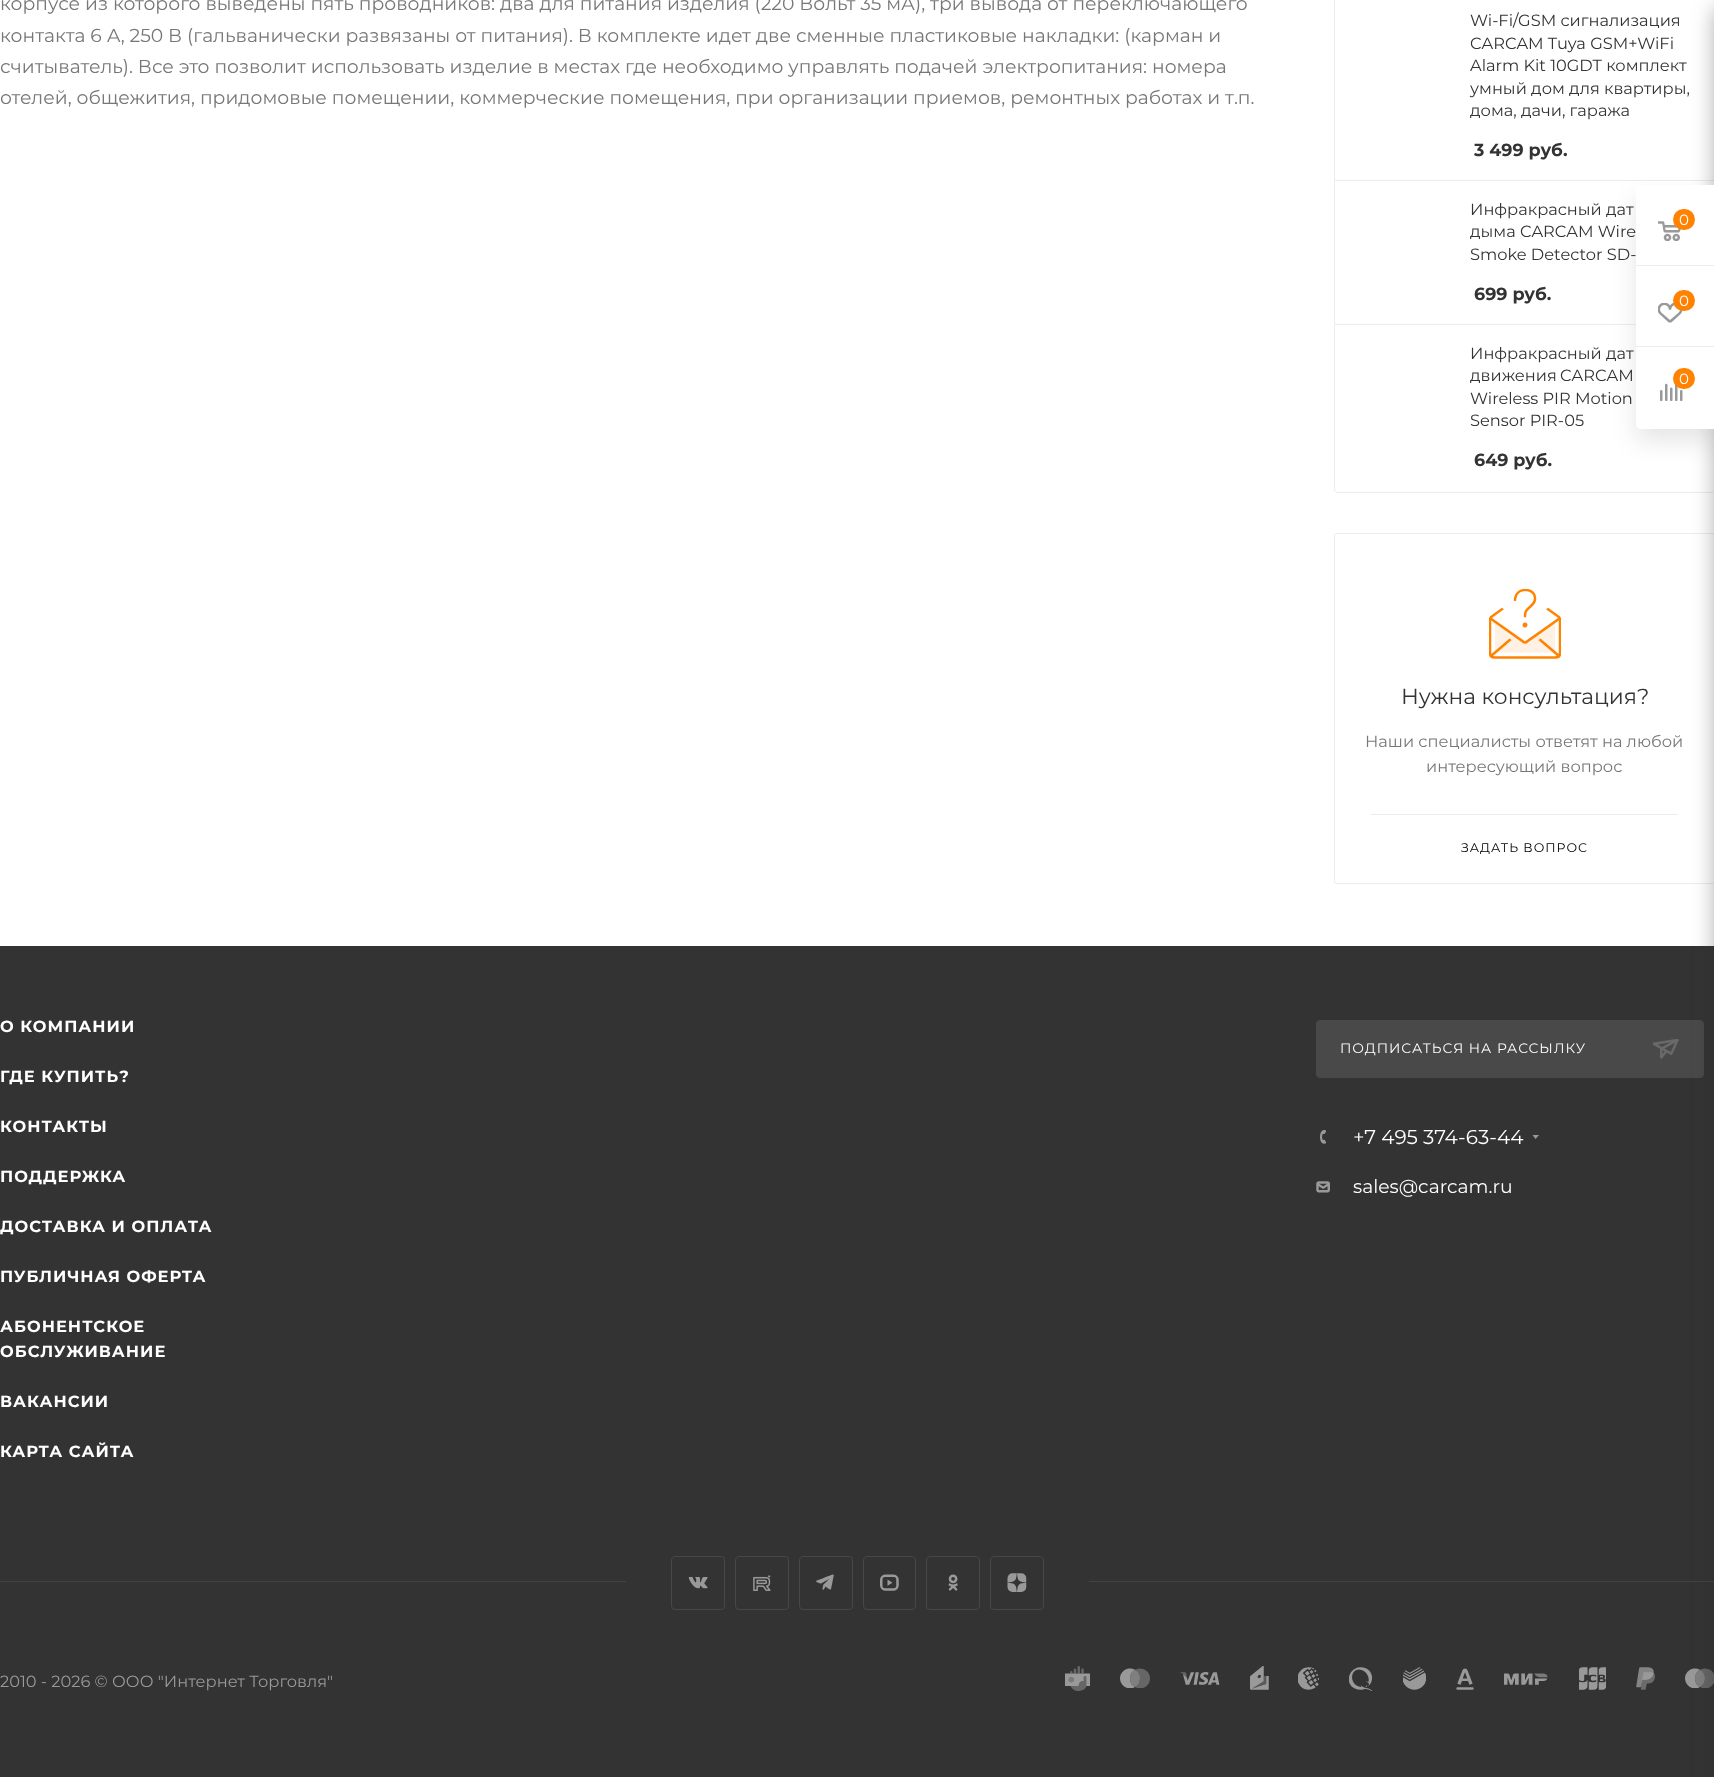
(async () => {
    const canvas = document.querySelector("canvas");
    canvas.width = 1714;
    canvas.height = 1777;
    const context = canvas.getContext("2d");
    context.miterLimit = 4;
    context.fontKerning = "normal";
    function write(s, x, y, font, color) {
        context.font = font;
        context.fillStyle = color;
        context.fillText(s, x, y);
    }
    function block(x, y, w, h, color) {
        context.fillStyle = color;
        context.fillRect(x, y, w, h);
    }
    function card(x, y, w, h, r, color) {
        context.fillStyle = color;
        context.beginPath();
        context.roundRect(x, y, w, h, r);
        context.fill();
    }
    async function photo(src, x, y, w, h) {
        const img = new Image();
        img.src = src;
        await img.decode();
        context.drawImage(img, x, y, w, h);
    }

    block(0, 0, 1714, 1777, "rgb(255, 255, 255)");
    write("корпусе из которого выведены пять проводников: два для питания изделия (220 Вольт 35 мА), три вывода от переключающего", 0, 10, "18.75px Montserrat", "rgb(119, 119, 119)");
    write("контакта 6 А, 250 В (гальванически развязаны от питания). В комплекте идет две сменные пластиковые накладки: (карман и", 0, 42, "18.75px Montserrat", "rgb(119, 119, 119)");
    write("считыватель). Все это позволит использовать изделие в местах где необходимо управлять подачей электропитания: номера", 0, 73, "18.75px Montserrat", "rgb(119, 119, 119)");
    write("отелей, общежития, придомовые помещении, коммерческие помещения, при организации приемов, ремонтных работах и т.п.", 0, 104, "18.75px Montserrat", "rgb(119, 119, 119)");
    context.beginPath();
    context.moveTo(1334.5, -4.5);
    context.lineTo(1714.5, -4.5);
    context.lineTo(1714.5, 179);
    context.bezierCurveTo(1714.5, 181, 1713, 182.5, 1711, 182.5);
    context.lineTo(1338, 182.5);
    context.bezierCurveTo(1336, 182.5, 1334.5, 181, 1334.5, 179);
    context.closePath();
    context.strokeStyle = "rgb(236, 236, 236)";
    context.stroke();
    write("Wi-Fi/GSM сигнализация", 1470, 26, "16.25px Montserrat", "rgb(51, 51, 51)");
    write("CARCAM Tuya GSM+WiFi", 1470, 49, "16.25px Montserrat", "rgb(51, 51, 51)");
    write("Alarm Kit 10GDT комплект", 1470, 71, "16.25px Montserrat", "rgb(51, 51, 51)");
    write("умный дом для квартиры,", 1470, 94, "16.25px Montserrat", "rgb(51, 51, 51)");
    write("дома, дачи, гаража", 1470, 116, "16.25px Montserrat", "rgb(51, 51, 51)");
    write("3 499 руб.", 1474, 156, "bold 17.5px Montserrat", "rgb(51, 51, 51)");
    context.fillStyle = "rgb(255, 255, 255)";
    context.beginPath();
    context.moveTo(1334.5, 180.5);
    context.lineTo(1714.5, 180.5);
    context.lineTo(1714.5, 322);
    context.bezierCurveTo(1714.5, 324, 1713, 325.5, 1711, 325.5);
    context.lineTo(1338, 325.5);
    context.bezierCurveTo(1336, 325.5, 1334.5, 324, 1334.5, 322);
    context.closePath();
    context.fill();
    context.stroke();
    write("Инфракрасный дат", 1470, 215, "16.25px Montserrat", "rgb(51, 51, 51)");
    write("дыма CARCAM Wire", 1470, 237, "16.25px Montserrat", "rgb(51, 51, 51)");
    write("Smoke Detector SD-", 1470, 260, "16.25px Montserrat", "rgb(51, 51, 51)");
    write("699 руб.", 1474, 300, "bold 17.5px Montserrat", "rgb(51, 51, 51)");
    context.fillStyle = "rgb(255, 255, 255)";
    context.beginPath();
    context.moveTo(1334.5, 324.5);
    context.lineTo(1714.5, 324.5);
    context.lineTo(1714.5, 489);
    context.bezierCurveTo(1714.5, 491, 1713, 492.5, 1711, 492.5);
    context.lineTo(1338, 492.5);
    context.bezierCurveTo(1336, 492.5, 1334.5, 491, 1334.5, 489);
    context.closePath();
    context.fill();
    context.stroke();
    write("Инфракрасный дат", 1470, 359, "16.25px Montserrat", "rgb(51, 51, 51)");
    context.wordSpacing = "-1px";
    write("движения CARCAM", 1470, 381, "16.25px Montserrat", "rgb(51, 51, 51)");
    context.wordSpacing = "0px";
    write("Wireless PIR Motion", 1470, 404, "16.25px Montserrat", "rgb(51, 51, 51)");
    write("Sensor PIR-05", 1470, 426, "16.25px Montserrat", "rgb(51, 51, 51)");
    write("649 руб.", 1474, 466, "bold 17.5px Montserrat", "rgb(51, 51, 51)");
    context.beginPath();
    context.roundRect(1334.5, 533.5, 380, 350, 2);
    context.stroke();
    await photo("media/1.png", 1489, 589, 72, 70);
    write("Нужна консультация?", 1401, 704, "21.75px Montserrat", "rgb(51, 51, 51)");
    write("Наши специалисты ответят на любой", 1365, 747, "16.25px Montserrat", "rgb(119, 119, 119)");
    write("интересующий вопрос", 1426, 772, "16.25px Montserrat", "rgb(119, 119, 119)");
    block(1371, 814, 307, 1, "rgb(236, 236, 236)");
    context.letterSpacing = "1px";
    write("ЗАДАТЬ ВОПРОС", 1461, 852, "12.5px Montserrat", "rgb(0, 0, 0)");
    block(0, 946, 1714, 831, "rgb(51, 51, 51)");
    context.fillStyle = "rgb(73, 73, 73)";
    context.beginPath();
    context.roundRect(1316.5, 1020.5, 387, 57, 3.5);
    context.fill();
    context.strokeStyle = "rgb(73, 73, 73)";
    context.stroke();
    block(0, 1581, 1714, 1, "rgb(67, 67, 67)");
    await photo("media/25.png", 1685, 1668, 29, 20);
    context.fillStyle = "rgba(44, 44, 44, 0.4)";
    context.filter = "blur(11px)";
    context.beginPath();
    context.roundRect(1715, 8, 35, 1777, 2.5);
    context.fill();
    context.filter = "none";
    context.fillStyle = "rgba(0, 0, 0, 0.1)";
    context.filter = "blur(12.5px)";
    context.beginPath();
    context.roundRect(1636, 198, 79, 243, 5);
    context.fill();
    context.filter = "none";
    context.fillStyle = "rgb(255, 255, 255)";
    context.beginPath();
    context.moveTo(1641, 185);
    context.lineTo(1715, 185);
    context.lineTo(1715, 429);
    context.lineTo(1641, 429);
    context.bezierCurveTo(1638, 429, 1636, 427, 1636, 424);
    context.lineTo(1636, 190);
    context.bezierCurveTo(1636, 187, 1638, 185, 1641, 185);
    context.closePath();
    context.fill();
    block(1636, 265, 78, 1, "rgb(236, 236, 236)");
    await photo("media/2.png", 1658, 221, 23, 20);
    card(1673, 209, 22, 21, 10.5, "rgb(255, 130, 0)");
    context.letterSpacing = "0px";
    write("0", 1679, 225, "15px Montserrat", "rgb(255, 255, 255)");
    block(1636, 346, 78, 1, "rgb(236, 236, 236)");
    await photo("media/3.png", 1658, 303, 25, 20);
    card(1673, 290, 22, 21, 10.5, "rgb(255, 130, 0)");
    write("0", 1679, 306, "15px Montserrat", "rgb(255, 255, 255)");
    await photo("media/4.png", 1660, 383, 23, 18);
    card(1673, 368, 22, 21, 10.5, "rgb(255, 130, 0)");
    write("0", 1679, 384, "15px Montserrat", "rgb(255, 255, 255)");
    context.letterSpacing = "1px";
    write("О КОМПАНИИ", 0, 1032, "bold 16.25px Montserrat", "rgb(255, 255, 255)");
    write("ГДЕ КУПИТЬ?", 0, 1082, "bold 16.25px Montserrat", "rgb(255, 255, 255)");
    write("КОНТАКТЫ", 0, 1132, "bold 16.25px Montserrat", "rgb(255, 255, 255)");
    write("ПОДДЕРЖКА", 0, 1182, "bold 16.25px Montserrat", "rgb(255, 255, 255)");
    write("ДОСТАВКА И ОПЛАТА", 0, 1232, "bold 16.25px Montserrat", "rgb(255, 255, 255)");
    write("ПУБЛИЧНАЯ ОФЕРТА", 0, 1282, "bold 16.25px Montserrat", "rgb(255, 255, 255)");
    write("АБОНЕНТСКОЕ", 0, 1332, "bold 16.25px Montserrat", "rgb(255, 255, 255)");
    write("ОБСЛУЖИВАНИЕ", 0, 1357, "bold 16.25px Montserrat", "rgb(255, 255, 255)");
    write("ВАКАНСИИ", 0, 1407, "bold 16.25px Montserrat", "rgb(255, 255, 255)");
    write("КАРТА САЙТА", 0, 1457, "bold 16.25px Montserrat", "rgb(255, 255, 255)");
    write("ПОДПИСАТЬСЯ НА РАССЫЛКУ", 1340, 1053, "13.75px Montserrat", "rgb(255, 255, 255)");
    await photo("media/5.png", 1653, 1039, 26, 20);
    await photo("media/6.png", 1320, 1130, 6, 14);
    context.letterSpacing = "0px";
    write("+7 495 374-63-44", 1353, 1144, "20px Montserrat", "rgb(255, 255, 255)");
    context.fillStyle = "rgb(153, 153, 153)";
    context.beginPath();
    context.moveTo(1532.5, 1135);
    context.lineTo(1539, 1135);
    context.lineTo(1535.5, 1139);
    context.closePath();
    context.fill("evenodd");
    await photo("media/7.png", 1316, 1181, 14, 12);
    write("sales@carcam.ru", 1353, 1193, "18.75px Montserrat", "rgb(255, 255, 255)");
    block(626, 1581, 463, 1, "rgb(51, 51, 51)");
    await photo("media/8.png", 688, 1577, 20, 12);
    context.beginPath();
    context.roundRect(671.5, 1556.5, 53, 53, 3.5);
    context.strokeStyle = "rgb(71, 71, 71)";
    context.stroke();
    await photo("media/9.png", 753, 1575, 18, 16);
    context.beginPath();
    context.roundRect(735.5, 1556.5, 53, 53, 3.5);
    context.stroke();
    await photo("media/10.png", 816, 1574, 18, 16);
    context.beginPath();
    context.roundRect(799.5, 1556.5, 53, 53, 3.5);
    context.stroke();
    await photo("media/11.png", 880, 1574, 19, 17);
    context.beginPath();
    context.roundRect(863.5, 1556.5, 52, 53, 3.5);
    context.stroke();
    await photo("media/12.png", 948, 1574, 10, 17);
    context.beginPath();
    context.roundRect(926.5, 1556.5, 53, 53, 3.5);
    context.stroke();
    await photo("media/13.png", 1007, 1573, 20, 19);
    context.beginPath();
    context.roundRect(990.5, 1556.5, 53, 53, 3.5);
    context.stroke();
    write("2010 - 2026 © ООО \"Интернет Торговля\"", 0, 1687, "16.25px Montserrat", "rgb(153, 153, 153)");
    await photo("media/14.png", 1065, 1666, 25, 25);
    await photo("media/15.png", 1120, 1668, 30, 20);
    await photo("media/16.png", 1180, 1672, 40, 13);
    await photo("media/17.png", 1250, 1666, 19, 24);
    await photo("media/18.png", 1298, 1667, 21, 23);
    await photo("media/19.png", 1349, 1667, 24, 24);
    await photo("media/20.png", 1403, 1667, 23, 23);
    await photo("media/21.png", 1456, 1668, 18, 22);
    await photo("media/22.png", 1504, 1673, 44, 12);
    await photo("media/23.png", 1579, 1667, 27, 23);
    await photo("media/24.png", 1636, 1667, 19, 23);
})();
